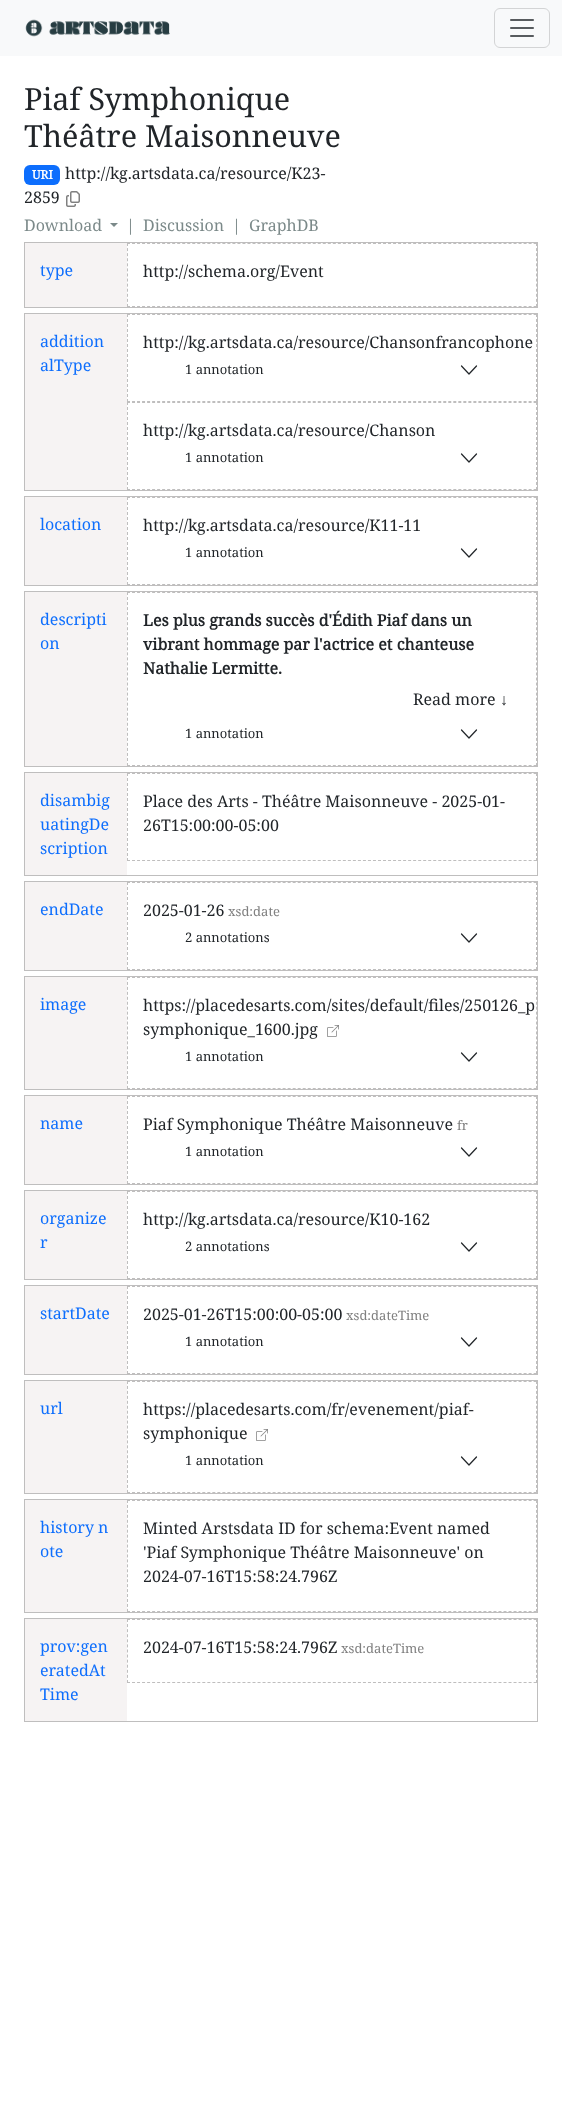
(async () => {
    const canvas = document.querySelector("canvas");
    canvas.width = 562;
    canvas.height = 2116;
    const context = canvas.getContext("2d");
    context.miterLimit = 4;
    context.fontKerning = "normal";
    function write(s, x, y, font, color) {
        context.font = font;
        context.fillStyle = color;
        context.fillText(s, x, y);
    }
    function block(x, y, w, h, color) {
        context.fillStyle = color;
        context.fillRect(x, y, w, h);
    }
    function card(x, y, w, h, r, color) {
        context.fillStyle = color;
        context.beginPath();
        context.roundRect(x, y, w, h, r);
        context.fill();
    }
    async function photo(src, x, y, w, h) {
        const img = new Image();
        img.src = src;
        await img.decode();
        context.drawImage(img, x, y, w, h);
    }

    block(0, 0, 562, 2116, "rgb(255, 255, 255)");
    block(0, 0, 562, 56, "rgb(248, 249, 250)");
    await photo("media/1.png", 25, 19, 145, 18);
    context.beginPath();
    context.roundRect(494.5, 8.5, 55, 39, 5.5);
    context.strokeStyle = "rgb(211, 212, 213)";
    context.stroke();
    await photo("media/2.png", 510, 19, 24, 18);
    write("Piaf Symphonique", 24, 110, "30.5px Noto Serif", "rgb(33, 37, 41)");
    write("Théâtre Maisonneuve", 24, 147, "30.5px Noto Serif", "rgb(33, 37, 41)");
    card(24, 165, 36, 20, 6, "rgb(13, 110, 253)");
    write("URI", 32, 179, "bold 12px Noto Serif", "rgb(255, 255, 255)");
    write("http://kg.artsdata.ca/resource/K23-", 65, 179, "16px Noto Serif", "rgb(33, 37, 41)");
    write("2859", 24, 203, "16px Noto Serif", "rgb(33, 37, 41)");
    await photo("media/3.png", 66, 191, 14, 16);
    write("Download", 24, 231, "16px Noto Serif", "rgb(123, 137, 137)");
    context.beginPath();
    context.moveTo(110, 223);
    context.lineTo(118, 223);
    context.lineTo(114, 227);
    context.closePath();
    context.fill();
    write("|", 126, 231, "16px Noto Serif", "rgb(123, 137, 137)");
    write("Discussion", 143, 231, "16px Noto Serif", "rgb(123, 137, 137)");
    write("|", 232, 231, "16px Noto Serif", "rgb(123, 137, 137)");
    write("GraphDB", 249, 231, "16px Noto Serif", "rgb(123, 137, 137)");
    block(25, 243, 102, 64, "rgb(246, 243, 243)");
    context.strokeStyle = "rgb(191, 190, 190)";
    context.strokeRect(24.5, 242.5, 513, 65);
    write("type", 40, 276, "16px Noto Serif", "rgb(13, 110, 253)");
    context.beginPath();
    context.moveTo(127, 243.5);
    context.lineTo(537, 243.5);
    context.setLineDash([3, 2.02]);
    context.stroke();
    context.beginPath();
    context.moveTo(536.5, 243);
    context.lineTo(536.5, 307);
    context.setLineDash([3, 2.08]);
    context.stroke();
    context.beginPath();
    context.moveTo(127, 306.5);
    context.lineTo(537, 306.5);
    context.setLineDash([3, 2.02]);
    context.stroke();
    context.beginPath();
    context.moveTo(127.5, 243);
    context.lineTo(127.5, 307);
    context.setLineDash([3, 2.08]);
    context.stroke();
    write("http://schema.org/Event", 143, 277, "16px Noto Serif", "rgb(33, 37, 41)");
    block(25, 314, 102, 176, "rgb(246, 243, 243)");
    context.setLineDash([]);
    context.strokeRect(24.5, 313.5, 513, 177);
    write("addition", 40, 347, "16px Noto Serif", "rgb(13, 110, 253)");
    write("alType", 40, 371, "16px Noto Serif", "rgb(13, 110, 253)");
    context.beginPath();
    context.moveTo(127, 314.5);
    context.lineTo(537, 314.5);
    context.setLineDash([3, 2.02]);
    context.stroke();
    context.beginPath();
    context.moveTo(536.5, 314);
    context.lineTo(536.5, 402);
    context.setLineDash([3, 2]);
    context.stroke();
    context.beginPath();
    context.moveTo(127, 401.5);
    context.lineTo(537, 401.5);
    context.setLineDash([3, 2.02]);
    context.stroke();
    context.beginPath();
    context.moveTo(127.5, 314);
    context.lineTo(127.5, 402);
    context.setLineDash([3, 2]);
    context.stroke();
    write("http://kg.artsdata.ca/resource/Chansonfrancophone", 143, 348, "16px Noto Serif", "rgb(33, 37, 41)");
    write("1 annotation", 185, 374, "13px Noto Serif", "rgb(33, 37, 41)");
    context.beginPath();
    context.moveTo(461.5, 366);
    context.lineTo(469, 374);
    context.lineTo(476.5, 366);
    context.strokeStyle = "rgb(33, 37, 41)";
    context.lineWidth = 1.2;
    context.lineCap = "round";
    context.lineJoin = "round";
    context.setLineDash([]);
    context.stroke();
    context.beginPath();
    context.moveTo(127, 402.5);
    context.lineTo(537, 402.5);
    context.strokeStyle = "rgb(191, 190, 190)";
    context.lineWidth = 1;
    context.lineCap = "butt";
    context.lineJoin = "miter";
    context.setLineDash([3, 2.02]);
    context.stroke();
    context.beginPath();
    context.moveTo(536.5, 402);
    context.lineTo(536.5, 490);
    context.setLineDash([3, 2]);
    context.stroke();
    context.beginPath();
    context.moveTo(127, 489.5);
    context.lineTo(537, 489.5);
    context.setLineDash([3, 2.02]);
    context.stroke();
    context.beginPath();
    context.moveTo(127.5, 402);
    context.lineTo(127.5, 490);
    context.setLineDash([3, 2]);
    context.stroke();
    write("http://kg.artsdata.ca/resource/Chanson", 143, 436, "16px Noto Serif", "rgb(33, 37, 41)");
    write("1 annotation", 185, 462, "13px Noto Serif", "rgb(33, 37, 41)");
    context.beginPath();
    context.moveTo(461.5, 454);
    context.lineTo(469, 462);
    context.lineTo(476.5, 454);
    context.strokeStyle = "rgb(33, 37, 41)";
    context.lineWidth = 1.2;
    context.lineCap = "round";
    context.lineJoin = "round";
    context.setLineDash([]);
    context.stroke();
    block(25, 497, 102, 88, "rgb(246, 243, 243)");
    context.strokeStyle = "rgb(191, 190, 190)";
    context.lineWidth = 1;
    context.lineJoin = "miter";
    context.strokeRect(24.5, 496.5, 513, 89);
    write("location", 40, 530, "16px Noto Serif", "rgb(13, 110, 253)");
    context.beginPath();
    context.moveTo(127, 497.5);
    context.lineTo(537, 497.5);
    context.lineCap = "butt";
    context.setLineDash([3, 2.02]);
    context.stroke();
    context.beginPath();
    context.moveTo(536.5, 497);
    context.lineTo(536.5, 585);
    context.setLineDash([3, 2]);
    context.stroke();
    context.beginPath();
    context.moveTo(127, 584.5);
    context.lineTo(537, 584.5);
    context.setLineDash([3, 2.02]);
    context.stroke();
    context.beginPath();
    context.moveTo(127.5, 497);
    context.lineTo(127.5, 585);
    context.setLineDash([3, 2]);
    context.stroke();
    write("http://kg.artsdata.ca/resource/K11-11", 143, 531, "16px Noto Serif", "rgb(33, 37, 41)");
    write("1 annotation", 185, 557, "13px Noto Serif", "rgb(33, 37, 41)");
    context.beginPath();
    context.moveTo(461.5, 549);
    context.lineTo(469, 557);
    context.lineTo(476.5, 549);
    context.strokeStyle = "rgb(33, 37, 41)";
    context.lineWidth = 1.2;
    context.lineCap = "round";
    context.lineJoin = "round";
    context.setLineDash([]);
    context.stroke();
    block(25, 592, 102, 174, "rgb(246, 243, 243)");
    context.strokeStyle = "rgb(191, 190, 190)";
    context.lineWidth = 1;
    context.lineJoin = "miter";
    context.strokeRect(24.5, 591.5, 513, 175);
    write("descripti", 40, 625, "16px Noto Serif", "rgb(13, 110, 253)");
    write("on", 40, 649, "16px Noto Serif", "rgb(13, 110, 253)");
    context.beginPath();
    context.moveTo(127, 592.5);
    context.lineTo(537, 592.5);
    context.lineCap = "butt";
    context.setLineDash([3, 2.02]);
    context.stroke();
    context.beginPath();
    context.moveTo(536.5, 592);
    context.lineTo(536.5, 766);
    context.setLineDash([3, 2.03]);
    context.stroke();
    context.beginPath();
    context.moveTo(127, 765.5);
    context.lineTo(537, 765.5);
    context.setLineDash([3, 2.02]);
    context.stroke();
    context.beginPath();
    context.moveTo(127.5, 592);
    context.lineTo(127.5, 766);
    context.setLineDash([3, 2.03]);
    context.stroke();
    write("Les plus grands succès d'Édith Piaf dans un", 143, 626, "bold 16px Noto Serif", "rgb(33, 37, 41)");
    write("vibrant hommage par l'actrice et chanteuse", 143, 650, "bold 16px Noto Serif", "rgb(33, 37, 41)");
    write("Nathalie Lermitte.", 143, 674, "bold 16px Noto Serif", "rgb(33, 37, 41)");
    write("Read more", 413, 705, "16px Noto Serif", "rgb(33, 37, 41)");
    write("↓", 500, 705, "16px Liberation Serif", "rgb(33, 37, 41)");
    write("1 annotation", 185, 738, "13px Noto Serif", "rgb(33, 37, 41)");
    context.beginPath();
    context.moveTo(461.5, 730);
    context.lineTo(469, 738);
    context.lineTo(476.5, 730);
    context.strokeStyle = "rgb(33, 37, 41)";
    context.lineWidth = 1.2;
    context.lineCap = "round";
    context.lineJoin = "round";
    context.setLineDash([]);
    context.stroke();
    block(25, 773, 102, 102, "rgb(246, 243, 243)");
    context.strokeStyle = "rgb(191, 190, 190)";
    context.lineWidth = 1;
    context.lineJoin = "miter";
    context.strokeRect(24.5, 772.5, 513, 103);
    write("disambig", 40, 806, "16px Noto Serif", "rgb(13, 110, 253)");
    write("uatingDe", 40, 830, "16px Noto Serif", "rgb(13, 110, 253)");
    write("scription", 40, 854, "16px Noto Serif", "rgb(13, 110, 253)");
    context.beginPath();
    context.moveTo(127, 773.5);
    context.lineTo(537, 773.5);
    context.lineCap = "butt";
    context.setLineDash([3, 2.02]);
    context.stroke();
    context.beginPath();
    context.moveTo(536.5, 773);
    context.lineTo(536.5, 861);
    context.setLineDash([3, 2]);
    context.stroke();
    context.beginPath();
    context.moveTo(127, 860.5);
    context.lineTo(537, 860.5);
    context.setLineDash([3, 2.02]);
    context.stroke();
    context.beginPath();
    context.moveTo(127.5, 773);
    context.lineTo(127.5, 861);
    context.setLineDash([3, 2]);
    context.stroke();
    write("Place des Arts - Théâtre Maisonneuve - 2025-01-", 143, 807, "16px Noto Serif", "rgb(33, 37, 41)");
    write("26T15:00:00-05:00", 143, 831, "16px Noto Serif", "rgb(33, 37, 41)");
    block(25, 882, 102, 88, "rgb(246, 243, 243)");
    context.setLineDash([]);
    context.strokeRect(24.5, 881.5, 513, 89);
    write("endDate", 40, 915, "16px Noto Serif", "rgb(13, 110, 253)");
    context.beginPath();
    context.moveTo(127, 882.5);
    context.lineTo(537, 882.5);
    context.setLineDash([3, 2.02]);
    context.stroke();
    context.beginPath();
    context.moveTo(536.5, 882);
    context.lineTo(536.5, 970);
    context.setLineDash([3, 2]);
    context.stroke();
    context.beginPath();
    context.moveTo(127, 969.5);
    context.lineTo(537, 969.5);
    context.setLineDash([3, 2.02]);
    context.stroke();
    context.beginPath();
    context.moveTo(127.5, 882);
    context.lineTo(127.5, 970);
    context.setLineDash([3, 2]);
    context.stroke();
    write("2025-01-26", 143, 916, "16px Noto Serif", "rgb(33, 37, 41)");
    write("xsd:date", 228, 916, "13px Noto Serif", "rgb(128, 128, 128)");
    write("2 annotations", 185, 942, "13px Noto Serif", "rgb(33, 37, 41)");
    context.beginPath();
    context.moveTo(461.5, 934);
    context.lineTo(469, 942);
    context.lineTo(476.5, 934);
    context.strokeStyle = "rgb(33, 37, 41)";
    context.lineWidth = 1.2;
    context.lineCap = "round";
    context.lineJoin = "round";
    context.setLineDash([]);
    context.stroke();
    block(25, 977, 102, 112, "rgb(246, 243, 243)");
    context.strokeStyle = "rgb(191, 190, 190)";
    context.lineWidth = 1;
    context.lineJoin = "miter";
    context.strokeRect(24.5, 976.5, 513, 113);
    write("image", 40, 1010, "16px Noto Serif", "rgb(13, 110, 253)");
    context.beginPath();
    context.moveTo(127, 977.5);
    context.lineTo(537, 977.5);
    context.lineCap = "butt";
    context.setLineDash([3, 2.02]);
    context.stroke();
    context.beginPath();
    context.moveTo(536.5, 977);
    context.lineTo(536.5, 1089);
    context.setLineDash([3, 1.95]);
    context.stroke();
    context.beginPath();
    context.moveTo(127, 1088.5);
    context.lineTo(537, 1088.5);
    context.setLineDash([3, 2.02]);
    context.stroke();
    context.beginPath();
    context.moveTo(127.5, 977);
    context.lineTo(127.5, 1089);
    context.setLineDash([3, 1.95]);
    context.stroke();
    write("https://placedesarts.com/sites/default/files/250126_p", 143, 1011, "16px Noto Serif", "rgb(33, 37, 41)");
    write("symphonique_1600.jpg", 143, 1035, "16px Noto Serif", "rgb(33, 37, 41)");
    await photo("media/4.png", 327, 1025, 12, 12);
    write("1 annotation", 185, 1061, "13px Noto Serif", "rgb(33, 37, 41)");
    context.beginPath();
    context.moveTo(461.5, 1053);
    context.lineTo(469, 1061);
    context.lineTo(476.5, 1053);
    context.strokeStyle = "rgb(33, 37, 41)";
    context.lineWidth = 1.2;
    context.lineCap = "round";
    context.lineJoin = "round";
    context.setLineDash([]);
    context.stroke();
    block(25, 1096, 102, 88, "rgb(246, 243, 243)");
    context.strokeStyle = "rgb(191, 190, 190)";
    context.lineWidth = 1;
    context.lineJoin = "miter";
    context.strokeRect(24.5, 1095.5, 513, 89);
    write("name", 40, 1129, "16px Noto Serif", "rgb(13, 110, 253)");
    context.beginPath();
    context.moveTo(127, 1096.5);
    context.lineTo(537, 1096.5);
    context.lineCap = "butt";
    context.setLineDash([3, 2.02]);
    context.stroke();
    context.beginPath();
    context.moveTo(536.5, 1096);
    context.lineTo(536.5, 1184);
    context.setLineDash([3, 2]);
    context.stroke();
    context.beginPath();
    context.moveTo(127, 1183.5);
    context.lineTo(537, 1183.5);
    context.setLineDash([3, 2.02]);
    context.stroke();
    context.beginPath();
    context.moveTo(127.5, 1096);
    context.lineTo(127.5, 1184);
    context.setLineDash([3, 2]);
    context.stroke();
    write("Piaf Symphonique Théâtre Maisonneuve", 143, 1130, "16px Noto Serif", "rgb(33, 37, 41)");
    write("fr", 457, 1130, "13px Noto Serif", "rgb(128, 128, 128)");
    write("1 annotation", 185, 1156, "13px Noto Serif", "rgb(33, 37, 41)");
    context.beginPath();
    context.moveTo(461.5, 1148);
    context.lineTo(469, 1156);
    context.lineTo(476.5, 1148);
    context.strokeStyle = "rgb(33, 37, 41)";
    context.lineWidth = 1.2;
    context.lineCap = "round";
    context.lineJoin = "round";
    context.setLineDash([]);
    context.stroke();
    block(25, 1191, 102, 88, "rgb(246, 243, 243)");
    context.strokeStyle = "rgb(191, 190, 190)";
    context.lineWidth = 1;
    context.lineJoin = "miter";
    context.strokeRect(24.5, 1190.5, 513, 89);
    write("organize", 40, 1224, "16px Noto Serif", "rgb(13, 110, 253)");
    write("r", 40, 1248, "16px Noto Serif", "rgb(13, 110, 253)");
    context.beginPath();
    context.moveTo(127, 1191.5);
    context.lineTo(537, 1191.5);
    context.lineCap = "butt";
    context.setLineDash([3, 2.02]);
    context.stroke();
    context.beginPath();
    context.moveTo(536.5, 1191);
    context.lineTo(536.5, 1279);
    context.setLineDash([3, 2]);
    context.stroke();
    context.beginPath();
    context.moveTo(127, 1278.5);
    context.lineTo(537, 1278.5);
    context.setLineDash([3, 2.02]);
    context.stroke();
    context.beginPath();
    context.moveTo(127.5, 1191);
    context.lineTo(127.5, 1279);
    context.setLineDash([3, 2]);
    context.stroke();
    write("http://kg.artsdata.ca/resource/K10-162", 143, 1225, "16px Noto Serif", "rgb(33, 37, 41)");
    write("2 annotations", 185, 1251, "13px Noto Serif", "rgb(33, 37, 41)");
    context.beginPath();
    context.moveTo(461.5, 1243);
    context.lineTo(469, 1251);
    context.lineTo(476.5, 1243);
    context.strokeStyle = "rgb(33, 37, 41)";
    context.lineWidth = 1.2;
    context.lineCap = "round";
    context.lineJoin = "round";
    context.setLineDash([]);
    context.stroke();
    block(25, 1286, 102, 88, "rgb(246, 243, 243)");
    context.strokeStyle = "rgb(191, 190, 190)";
    context.lineWidth = 1;
    context.lineJoin = "miter";
    context.strokeRect(24.5, 1285.5, 513, 89);
    write("startDate", 40, 1319, "16px Noto Serif", "rgb(13, 110, 253)");
    context.beginPath();
    context.moveTo(127, 1286.5);
    context.lineTo(537, 1286.5);
    context.lineCap = "butt";
    context.setLineDash([3, 2.02]);
    context.stroke();
    context.beginPath();
    context.moveTo(536.5, 1286);
    context.lineTo(536.5, 1374);
    context.setLineDash([3, 2]);
    context.stroke();
    context.beginPath();
    context.moveTo(127, 1373.5);
    context.lineTo(537, 1373.5);
    context.setLineDash([3, 2.02]);
    context.stroke();
    context.beginPath();
    context.moveTo(127.5, 1286);
    context.lineTo(127.5, 1374);
    context.setLineDash([3, 2]);
    context.stroke();
    write("2025-01-26T15:00:00-05:00", 143, 1320, "16px Noto Serif", "rgb(33, 37, 41)");
    write("xsd:dateTime", 346, 1320, "13px Noto Serif", "rgb(128, 128, 128)");
    write("1 annotation", 185, 1346, "13px Noto Serif", "rgb(33, 37, 41)");
    context.beginPath();
    context.moveTo(461.5, 1338);
    context.lineTo(469, 1346);
    context.lineTo(476.5, 1338);
    context.strokeStyle = "rgb(33, 37, 41)";
    context.lineWidth = 1.2;
    context.lineCap = "round";
    context.lineJoin = "round";
    context.setLineDash([]);
    context.stroke();
    block(25, 1381, 102, 112, "rgb(246, 243, 243)");
    context.strokeStyle = "rgb(191, 190, 190)";
    context.lineWidth = 1;
    context.lineJoin = "miter";
    context.strokeRect(24.5, 1380.5, 513, 113);
    write("url", 40, 1414, "16px Noto Serif", "rgb(13, 110, 253)");
    context.beginPath();
    context.moveTo(127, 1381.5);
    context.lineTo(537, 1381.5);
    context.lineCap = "butt";
    context.setLineDash([3, 2.02]);
    context.stroke();
    context.beginPath();
    context.moveTo(536.5, 1381);
    context.lineTo(536.5, 1493);
    context.setLineDash([3, 1.95]);
    context.stroke();
    context.beginPath();
    context.moveTo(127, 1492.5);
    context.lineTo(537, 1492.5);
    context.setLineDash([3, 2.02]);
    context.stroke();
    context.beginPath();
    context.moveTo(127.5, 1381);
    context.lineTo(127.5, 1493);
    context.setLineDash([3, 1.95]);
    context.stroke();
    write("https://placedesarts.com/fr/evenement/piaf-", 143, 1415, "16px Noto Serif", "rgb(33, 37, 41)");
    write("symphonique", 143, 1439, "16px Noto Serif", "rgb(33, 37, 41)");
    await photo("media/4.png", 256, 1429, 12, 12);
    write("1 annotation", 185, 1465, "13px Noto Serif", "rgb(33, 37, 41)");
    context.beginPath();
    context.moveTo(461.5, 1457);
    context.lineTo(469, 1465);
    context.lineTo(476.5, 1457);
    context.strokeStyle = "rgb(33, 37, 41)";
    context.lineWidth = 1.2;
    context.lineCap = "round";
    context.lineJoin = "round";
    context.setLineDash([]);
    context.stroke();
    block(25, 1500, 102, 112, "rgb(246, 243, 243)");
    context.strokeStyle = "rgb(191, 190, 190)";
    context.lineWidth = 1;
    context.lineJoin = "miter";
    context.strokeRect(24.5, 1499.5, 513, 113);
    write("history n", 40, 1533, "16px Noto Serif", "rgb(13, 110, 253)");
    write("ote", 40, 1557, "16px Noto Serif", "rgb(13, 110, 253)");
    context.beginPath();
    context.moveTo(127, 1500.5);
    context.lineTo(537, 1500.5);
    context.lineCap = "butt";
    context.setLineDash([3, 2.02]);
    context.stroke();
    context.beginPath();
    context.moveTo(536.5, 1500);
    context.lineTo(536.5, 1612);
    context.setLineDash([3, 1.95]);
    context.stroke();
    context.beginPath();
    context.moveTo(127, 1611.5);
    context.lineTo(537, 1611.5);
    context.setLineDash([3, 2.02]);
    context.stroke();
    context.beginPath();
    context.moveTo(127.5, 1500);
    context.lineTo(127.5, 1612);
    context.setLineDash([3, 1.95]);
    context.stroke();
    write("Minted Arstsdata ID for schema:Event named", 143, 1534, "16px Noto Serif", "rgb(33, 37, 41)");
    write("'Piaf Symphonique Théâtre Maisonneuve' on", 143, 1558, "16px Noto Serif", "rgb(33, 37, 41)");
    write("2024-07-16T15:58:24.796Z", 143, 1582, "16px Noto Serif", "rgb(33, 37, 41)");
    block(25, 1619, 102, 102, "rgb(246, 243, 243)");
    context.setLineDash([]);
    context.strokeRect(24.5, 1618.5, 513, 103);
    write("prov:gen", 40, 1652, "16px Noto Serif", "rgb(13, 110, 253)");
    write("eratedAt", 40, 1676, "16px Noto Serif", "rgb(13, 110, 253)");
    write("Time", 40, 1700, "16px Noto Serif", "rgb(13, 110, 253)");
    context.beginPath();
    context.moveTo(127, 1619.5);
    context.lineTo(537, 1619.5);
    context.setLineDash([3, 2.02]);
    context.stroke();
    context.beginPath();
    context.moveTo(536.5, 1619);
    context.lineTo(536.5, 1683);
    context.setLineDash([3, 2.08]);
    context.stroke();
    context.beginPath();
    context.moveTo(127, 1682.5);
    context.lineTo(537, 1682.5);
    context.setLineDash([3, 2.02]);
    context.stroke();
    context.beginPath();
    context.moveTo(127.5, 1619);
    context.lineTo(127.5, 1683);
    context.setLineDash([3, 2.08]);
    context.stroke();
    write("2024-07-16T15:58:24.796Z", 143, 1653, "16px Noto Serif", "rgb(33, 37, 41)");
    write("xsd:dateTime", 341, 1653, "13px Noto Serif", "rgb(128, 128, 128)");
})();
